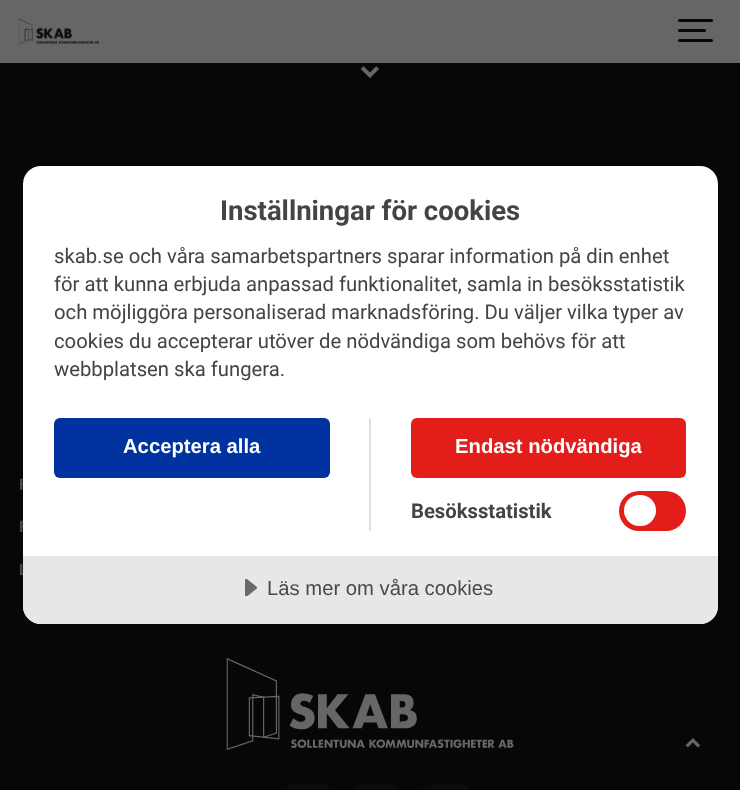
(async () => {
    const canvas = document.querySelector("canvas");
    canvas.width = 740;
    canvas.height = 790;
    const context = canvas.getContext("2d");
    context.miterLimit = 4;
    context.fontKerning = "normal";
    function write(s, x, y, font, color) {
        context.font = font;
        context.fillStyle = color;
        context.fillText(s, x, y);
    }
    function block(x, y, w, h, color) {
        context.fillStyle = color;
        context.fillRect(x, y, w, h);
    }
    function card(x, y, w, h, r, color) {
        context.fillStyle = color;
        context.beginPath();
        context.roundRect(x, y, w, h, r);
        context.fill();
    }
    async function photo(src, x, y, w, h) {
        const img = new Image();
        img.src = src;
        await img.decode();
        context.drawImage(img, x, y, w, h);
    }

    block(0, 0, 740, 790, "rgb(7, 7, 7)");
    block(0, 0, 740, 63, "rgb(102, 102, 102)");
    await photo("media/1.png", 18, 18, 81, 26);
    card(678, 29, 28, 3, 1.5, "rgb(7, 7, 7)");
    card(678, 19, 35, 3, 1.5, "rgb(7, 7, 7)");
    card(678, 39, 35, 3, 1.5, "rgb(7, 7, 7)");
    await photo("media/2.png", 361, 66, 18, 12);
    write("F", 19, 490, "bold 16px Roboto", "rgb(74, 74, 74)");
    write("F", 19, 532, "bold 16px Roboto", "rgb(74, 74, 74)");
    write("L", 19, 575, "bold 16px Roboto", "rgb(74, 74, 74)");
    await photo("media/3.png", 226, 658, 288, 92);
    card(280, 784, 56, 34, 28, "rgb(12, 12, 12)");
    card(349, 784, 56, 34, 28, "rgb(12, 12, 12)");
    card(418, 784, 56, 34, 28, "rgb(12, 12, 12)");
    card(23, 166, 695, 458, 18, "rgb(255, 255, 255)");
    write("Inställningar för cookies", 220, 220, "bold 27.5px Roboto", "rgb(68, 68, 68)");
    write("skab.se och våra samarbetspartners sparar information på din enhet", 54, 263, "20.25px Roboto", "rgb(68, 68, 68)");
    write("för att kunna erbjuda anpassad funktionalitet, samla in besöksstatistik", 54, 291, "20.25px Roboto", "rgb(68, 68, 68)");
    write("och möjliggöra personaliserad marknadsföring. Du väljer vilka typer av", 54, 319, "20.25px Roboto", "rgb(68, 68, 68)");
    write("cookies du accepterar utöver de nödvändiga som behövs för att", 54, 348, "20.25px Roboto", "rgb(68, 68, 68)");
    write("webbplatsen ska fungera.", 54, 376, "20.25px Roboto", "rgb(68, 68, 68)");
    block(369, 418, 2, 113, "rgb(224, 224, 224)");
    card(54, 418, 276, 60, 6, "rgb(0, 50, 160)");
    write("Acceptera alla", 123, 453, "bold 20.25px Liberation Sans", "rgb(255, 255, 255)");
    card(411, 418, 275, 60, 6, "rgb(227, 29, 26)");
    write("Endast nödvändiga", 455, 453, "bold 20.25px Liberation Sans", "rgb(255, 255, 255)");
    write("Besöksstatistik", 411, 518, "bold 20.25px Roboto", "rgb(68, 68, 68)");
    card(619, 491, 67, 40, 20, "rgb(227, 29, 26)");
    card(624, 495, 32, 31, 15.5, "rgb(255, 255, 255)");
    context.fillStyle = "rgb(231, 231, 231)";
    context.beginPath();
    context.roundRect(23, 556, 695, 68, [0, 0, 18, 18]);
    context.fill();
    await photo("media/4.png", 245, 579, 12, 17);
    write("Läs mer om våra cookies", 267, 595, "20.25px Liberation Sans", "rgb(74, 74, 74)");
    await photo("media/5.png", 685, 738, 15, 10);
})();
